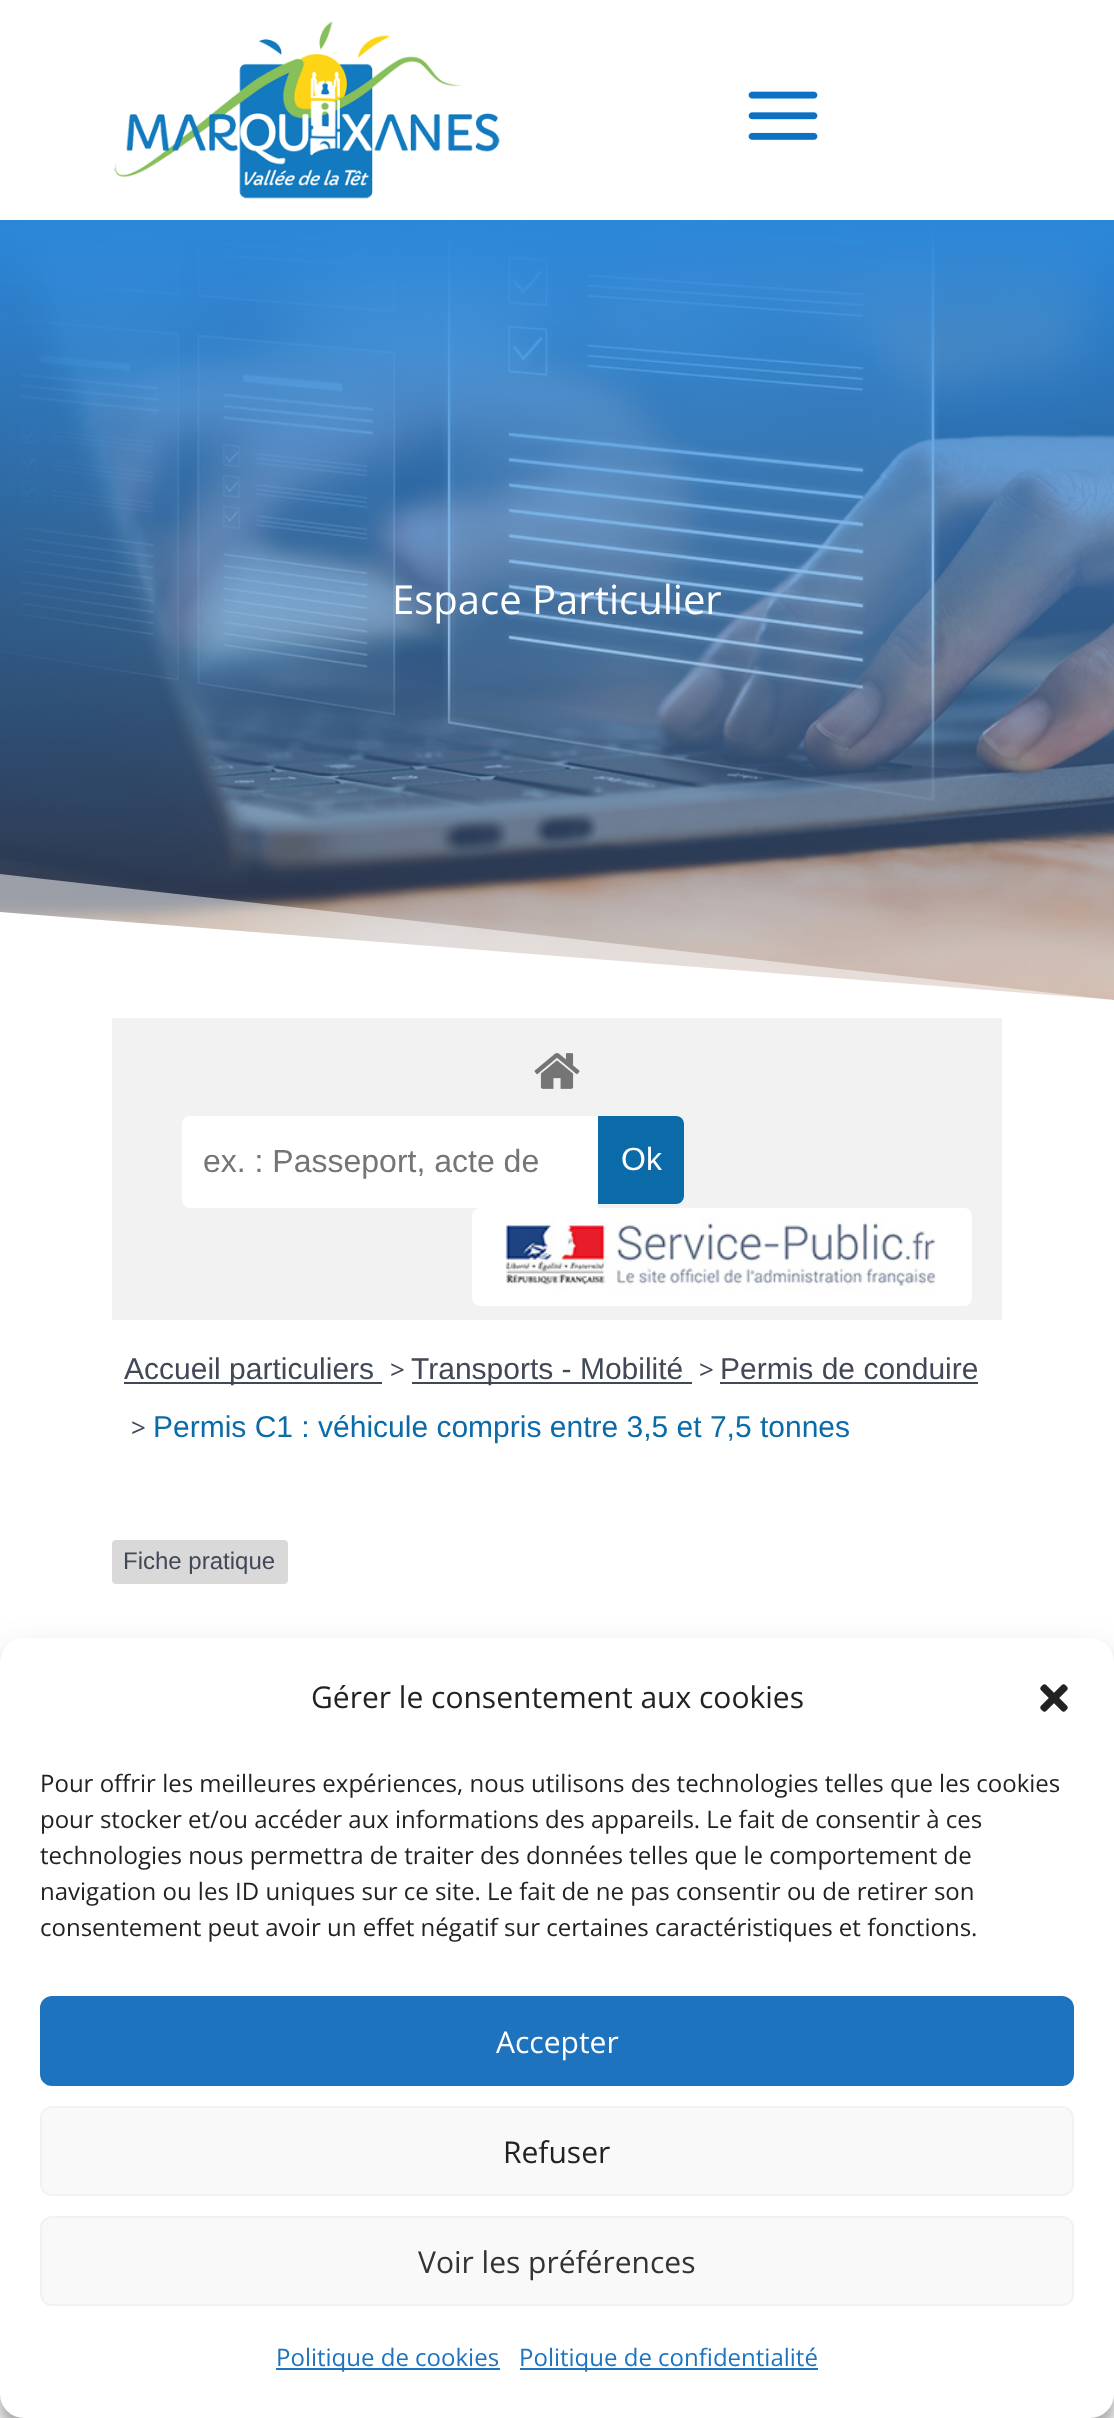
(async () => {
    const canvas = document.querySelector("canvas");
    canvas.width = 1114;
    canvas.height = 2418;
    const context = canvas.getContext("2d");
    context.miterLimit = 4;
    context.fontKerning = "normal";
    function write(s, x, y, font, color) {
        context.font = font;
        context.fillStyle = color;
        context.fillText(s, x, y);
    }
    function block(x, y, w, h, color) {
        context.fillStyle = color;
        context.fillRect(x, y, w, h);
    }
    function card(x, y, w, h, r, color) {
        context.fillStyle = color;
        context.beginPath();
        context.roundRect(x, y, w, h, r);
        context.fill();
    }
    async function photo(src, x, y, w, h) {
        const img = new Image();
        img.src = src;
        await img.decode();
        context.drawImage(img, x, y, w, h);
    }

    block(0, 0, 1114, 2418, "rgb(255, 255, 255)");
    await photo("media/1.png", 114, 21, 386, 178);
    await photo("media/2.png", 748, 91, 70, 49);
    await photo("media/3.png", 0, 220, 1114, 780);
    write("Espace Particulier", 392, 614, "40px Open Sans", "rgb(255, 255, 255)");
    context.fillStyle = "rgba(255, 255, 255, 0.5)";
    context.beginPath();
    context.moveTo(0, 874);
    context.lineTo(0, 1000);
    context.lineTo(1114, 1000);
    context.closePath();
    context.fill();
    context.fillStyle = "rgb(255, 255, 255)";
    context.beginPath();
    context.moveTo(0, 912);
    context.lineTo(0, 1000);
    context.lineTo(1114, 1000);
    context.closePath();
    context.fill();
    block(112, 1018, 890, 302, "rgb(242, 242, 242)");
    await photo("media/4.png", 534, 1053, 46, 36);
    context.fillStyle = "rgb(255, 255, 255)";
    context.beginPath();
    context.roundRect(182, 1116, 416, 92, [8, 0, 0, 8]);
    context.fill();
    write("ex. : Passeport, acte de", 203, 1172, "32px Liberation Sans", "rgb(117, 117, 117)");
    context.fillStyle = "rgb(11, 107, 168)";
    context.beginPath();
    context.roundRect(598, 1116, 86, 88, [0, 8, 8, 0]);
    context.fill();
    write("Ok", 621, 1170, "32px Liberation Sans", "rgb(255, 255, 255)");
    card(472, 1208, 500, 98, 8, "rgb(255, 255, 255)");
    await photo("media/5.png", 505, 1218, 432, 72);
    block(124, 1382, 258, 2, "rgb(65, 72, 86)");
    write("Accueil particuliers", 124, 1379, "30px Liberation Sans", "rgb(65, 72, 86)");
    write(">", 390, 1379, "26px Open Sans", "rgb(65, 72, 86)");
    block(412, 1382, 280, 2, "rgb(65, 72, 86)");
    write("Transports - Mobilité", 411, 1379, "30px Liberation Sans", "rgb(65, 72, 86)");
    write(">", 699, 1379, "26px Open Sans", "rgb(65, 72, 86)");
    write("Permis de conduire", 720, 1379, "30px Liberation Sans", "rgb(65, 72, 86)");
    block(720, 1382, 258, 2, "rgb(65, 72, 86)");
    write(">", 131, 1437, "26px Open Sans", "rgb(65, 72, 86)");
    write("Permis C1 : véhicule compris entre 3,5 et 7,5 tonnes", 153, 1437, "30px Liberation Sans", "rgb(11, 107, 168)");
    card(112, 1540, 176, 44, 4, "rgb(217, 217, 217)");
    write("Fiche pratique", 123, 1569, "24px Liberation Sans", "rgb(65, 72, 86)");
    context.fillStyle = "rgba(0, 0, 0, 0.23)";
    context.filter = "blur(6px)";
    context.beginPath();
    context.roundRect(0, 1650, 1114, 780, 24);
    context.fill();
    context.filter = "none";
    context.fillStyle = "rgba(0, 0, 0, 0.19)";
    context.filter = "blur(20px)";
    context.beginPath();
    context.roundRect(0, 1658, 1114, 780, 24);
    context.fill();
    context.filter = "none";
    card(0, 1638, 1114, 780, 24, "rgb(255, 255, 255)");
    write("Gérer le consentement aux cookies", 311, 1708, "30px Open Sans", "rgb(34, 34, 34)");
    await photo("media/6.png", 1040, 1684, 28, 28);
    write("Pour offrir les meilleures expériences, nous utilisons des technologies telles que les cookies", 40, 1792, "24px Open Sans", "rgb(34, 34, 34)");
    write("pour stocker et/ou accéder aux informations des appareils. Le fait de consentir à ces", 40, 1828, "24px Open Sans", "rgb(34, 34, 34)");
    write("technologies nous permettra de traiter des données telles que le comportement de", 40, 1864, "24px Open Sans", "rgb(34, 34, 34)");
    write("navigation ou les ID uniques sur ce site. Le fait de ne pas consentir ou de retirer son", 40, 1900, "24px Open Sans", "rgb(34, 34, 34)");
    write("consentement peut avoir un effet négatif sur certaines caractéristiques et fonctions.", 40, 1936, "24px Open Sans", "rgb(34, 34, 34)");
    context.fillStyle = "rgb(30, 115, 190)";
    context.beginPath();
    context.roundRect(41, 1997, 1032, 88, 11);
    context.fill();
    context.strokeStyle = "rgb(30, 115, 190)";
    context.lineWidth = 2;
    context.stroke();
    write("Accepter", 496, 2053, "30px Open Sans", "rgb(255, 255, 255)");
    context.fillStyle = "rgb(249, 249, 249)";
    context.beginPath();
    context.roundRect(41, 2107, 1032, 88, 11);
    context.fill();
    context.strokeStyle = "rgb(242, 242, 242)";
    context.stroke();
    write("Refuser", 503, 2163, "30px Open Sans", "rgb(34, 34, 34)");
    context.fillStyle = "rgb(249, 249, 249)";
    context.beginPath();
    context.roundRect(41, 2217, 1032, 88, 11);
    context.fill();
    context.stroke();
    write("Voir les préférences", 418, 2273, "30px Open Sans", "rgb(51, 51, 51)");
    block(276, 2368, 224, 2, "rgb(30, 115, 190)");
    write("Politique de cookies", 276, 2366, "24px Open Sans", "rgb(30, 115, 190)");
    block(520, 2368, 298, 2, "rgb(30, 115, 190)");
    write("Politique de confidentialité", 519, 2366, "24px Open Sans", "rgb(30, 115, 190)");
})();
